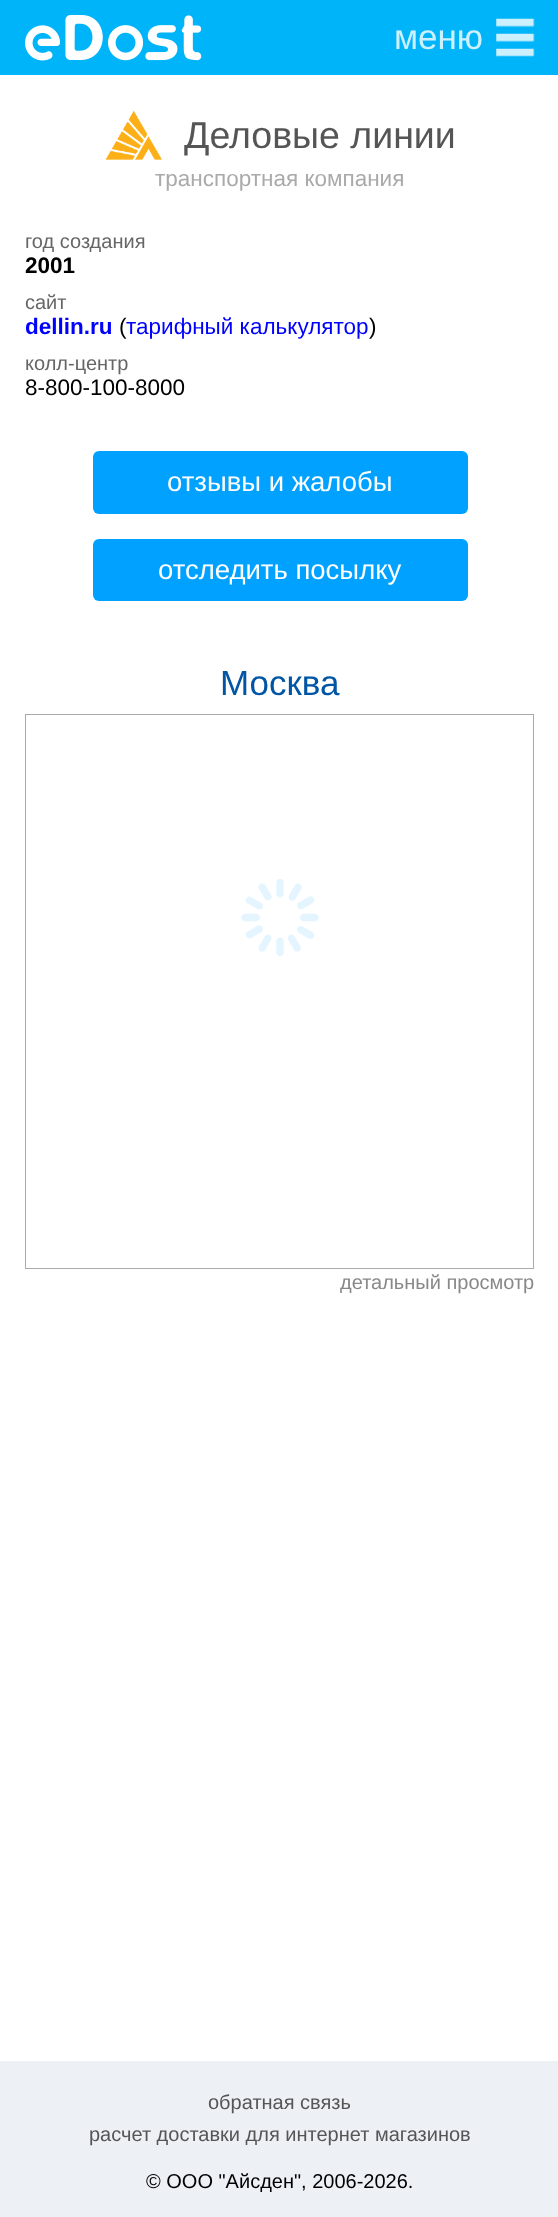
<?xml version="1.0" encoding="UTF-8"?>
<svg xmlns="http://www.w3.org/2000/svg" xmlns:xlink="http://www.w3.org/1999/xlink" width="558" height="2217">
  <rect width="100%" height="100%" fill="#ffffff" />
  <rect width="558" height="75" fill="#00b4f9" />
  <image x="25" y="15" width="177" height="46" xlink:href="image1.png" />
  <image x="496" y="18" width="39" height="39" xlink:href="image2.png" />
  <image x="105" y="110" width="57" height="50" xlink:href="image3.png" />
  <rect x="93" y="451" width="375" height="63" rx="6" fill="#00a1ff" />
  <rect x="93" y="539" width="375" height="62" rx="6" fill="#00a1ff" />
  <rect x="25.5" y="714.5" width="508" height="554" fill="none" stroke="#aaaaaa" />
  <image x="241" y="879" width="78" height="77" xlink:href="image4.png" />
  <rect y="2061" width="558" height="156" fill="#edf1f6" />
  <text x="394" y="49" style="font-family: Liberation Sans; font-size: 35px; fill: #ccf0fe">меню</text>
  <text x="184" y="148" style="font-family: Liberation Sans; font-size: 37.5px; fill: #555555">Деловые линии</text>
  <text x="155" y="186" style="font-family: Liberation Sans; font-size: 22.5px; fill: #aaaaaa">транспортная компания</text>
  <text x="25" y="248" style="font-family: Liberation Sans; font-size: 20px; fill: #666666">год создания</text>
  <text x="25" y="273" style="font-family: Liberation Sans; font-size: 22.5px; font-weight: bold; fill: #000000">2001</text>
  <text x="25" y="309" style="font-family: Liberation Sans; font-size: 20px; fill: #666666">сайт</text>
  <text x="25" y="334" style="font-family: Liberation Sans; font-size: 22.5px; font-weight: bold; fill: #0000ff">dellin.ru</text>
  <text x="119" y="334" style="font-family: Liberation Sans; font-size: 22.5px; fill: #000000">(</text>
  <text x="126" y="334" style="font-family: Liberation Sans; font-size: 22.5px; fill: #0000ff">тарифный калькулятор</text>
  <text x="369" y="334" style="font-family: Liberation Sans; font-size: 22.5px; fill: #000000">)</text>
  <text x="25" y="370" style="font-family: Liberation Sans; font-size: 20px; fill: #666666">колл-центр</text>
  <text x="25" y="395" style="font-family: Liberation Sans; font-size: 22.5px; fill: #000000">8-800-100-8000</text>
  <text x="167" y="491" style="font-family: Liberation Sans; font-size: 27.5px; fill: #ffffff">отзывы и жалобы</text>
  <text x="158" y="579" style="font-family: Liberation Sans; font-size: 27.5px; fill: #ffffff">отследить посылку</text>
  <text x="220" y="695" style="font-family: Liberation Sans; font-size: 35px; fill: #0055a5">Москва</text>
  <text x="340" y="1289" style="font-family: Liberation Sans; font-size: 20px; fill: #888888">детальный просмотр</text>
  <text x="208" y="2109" style="font-family: Liberation Sans; font-size: 20px; fill: #555555">обратная связь</text>
  <text x="89" y="2141" style="font-family: Liberation Sans; font-size: 20px; fill: #555555">расчет доставки для интернет магазинов</text>
  <text x="146" y="2188" style="font-family: Liberation Sans; font-size: 20px; fill: #000000">© ООО "Айсден", 2006-2026.</text>
</svg>
